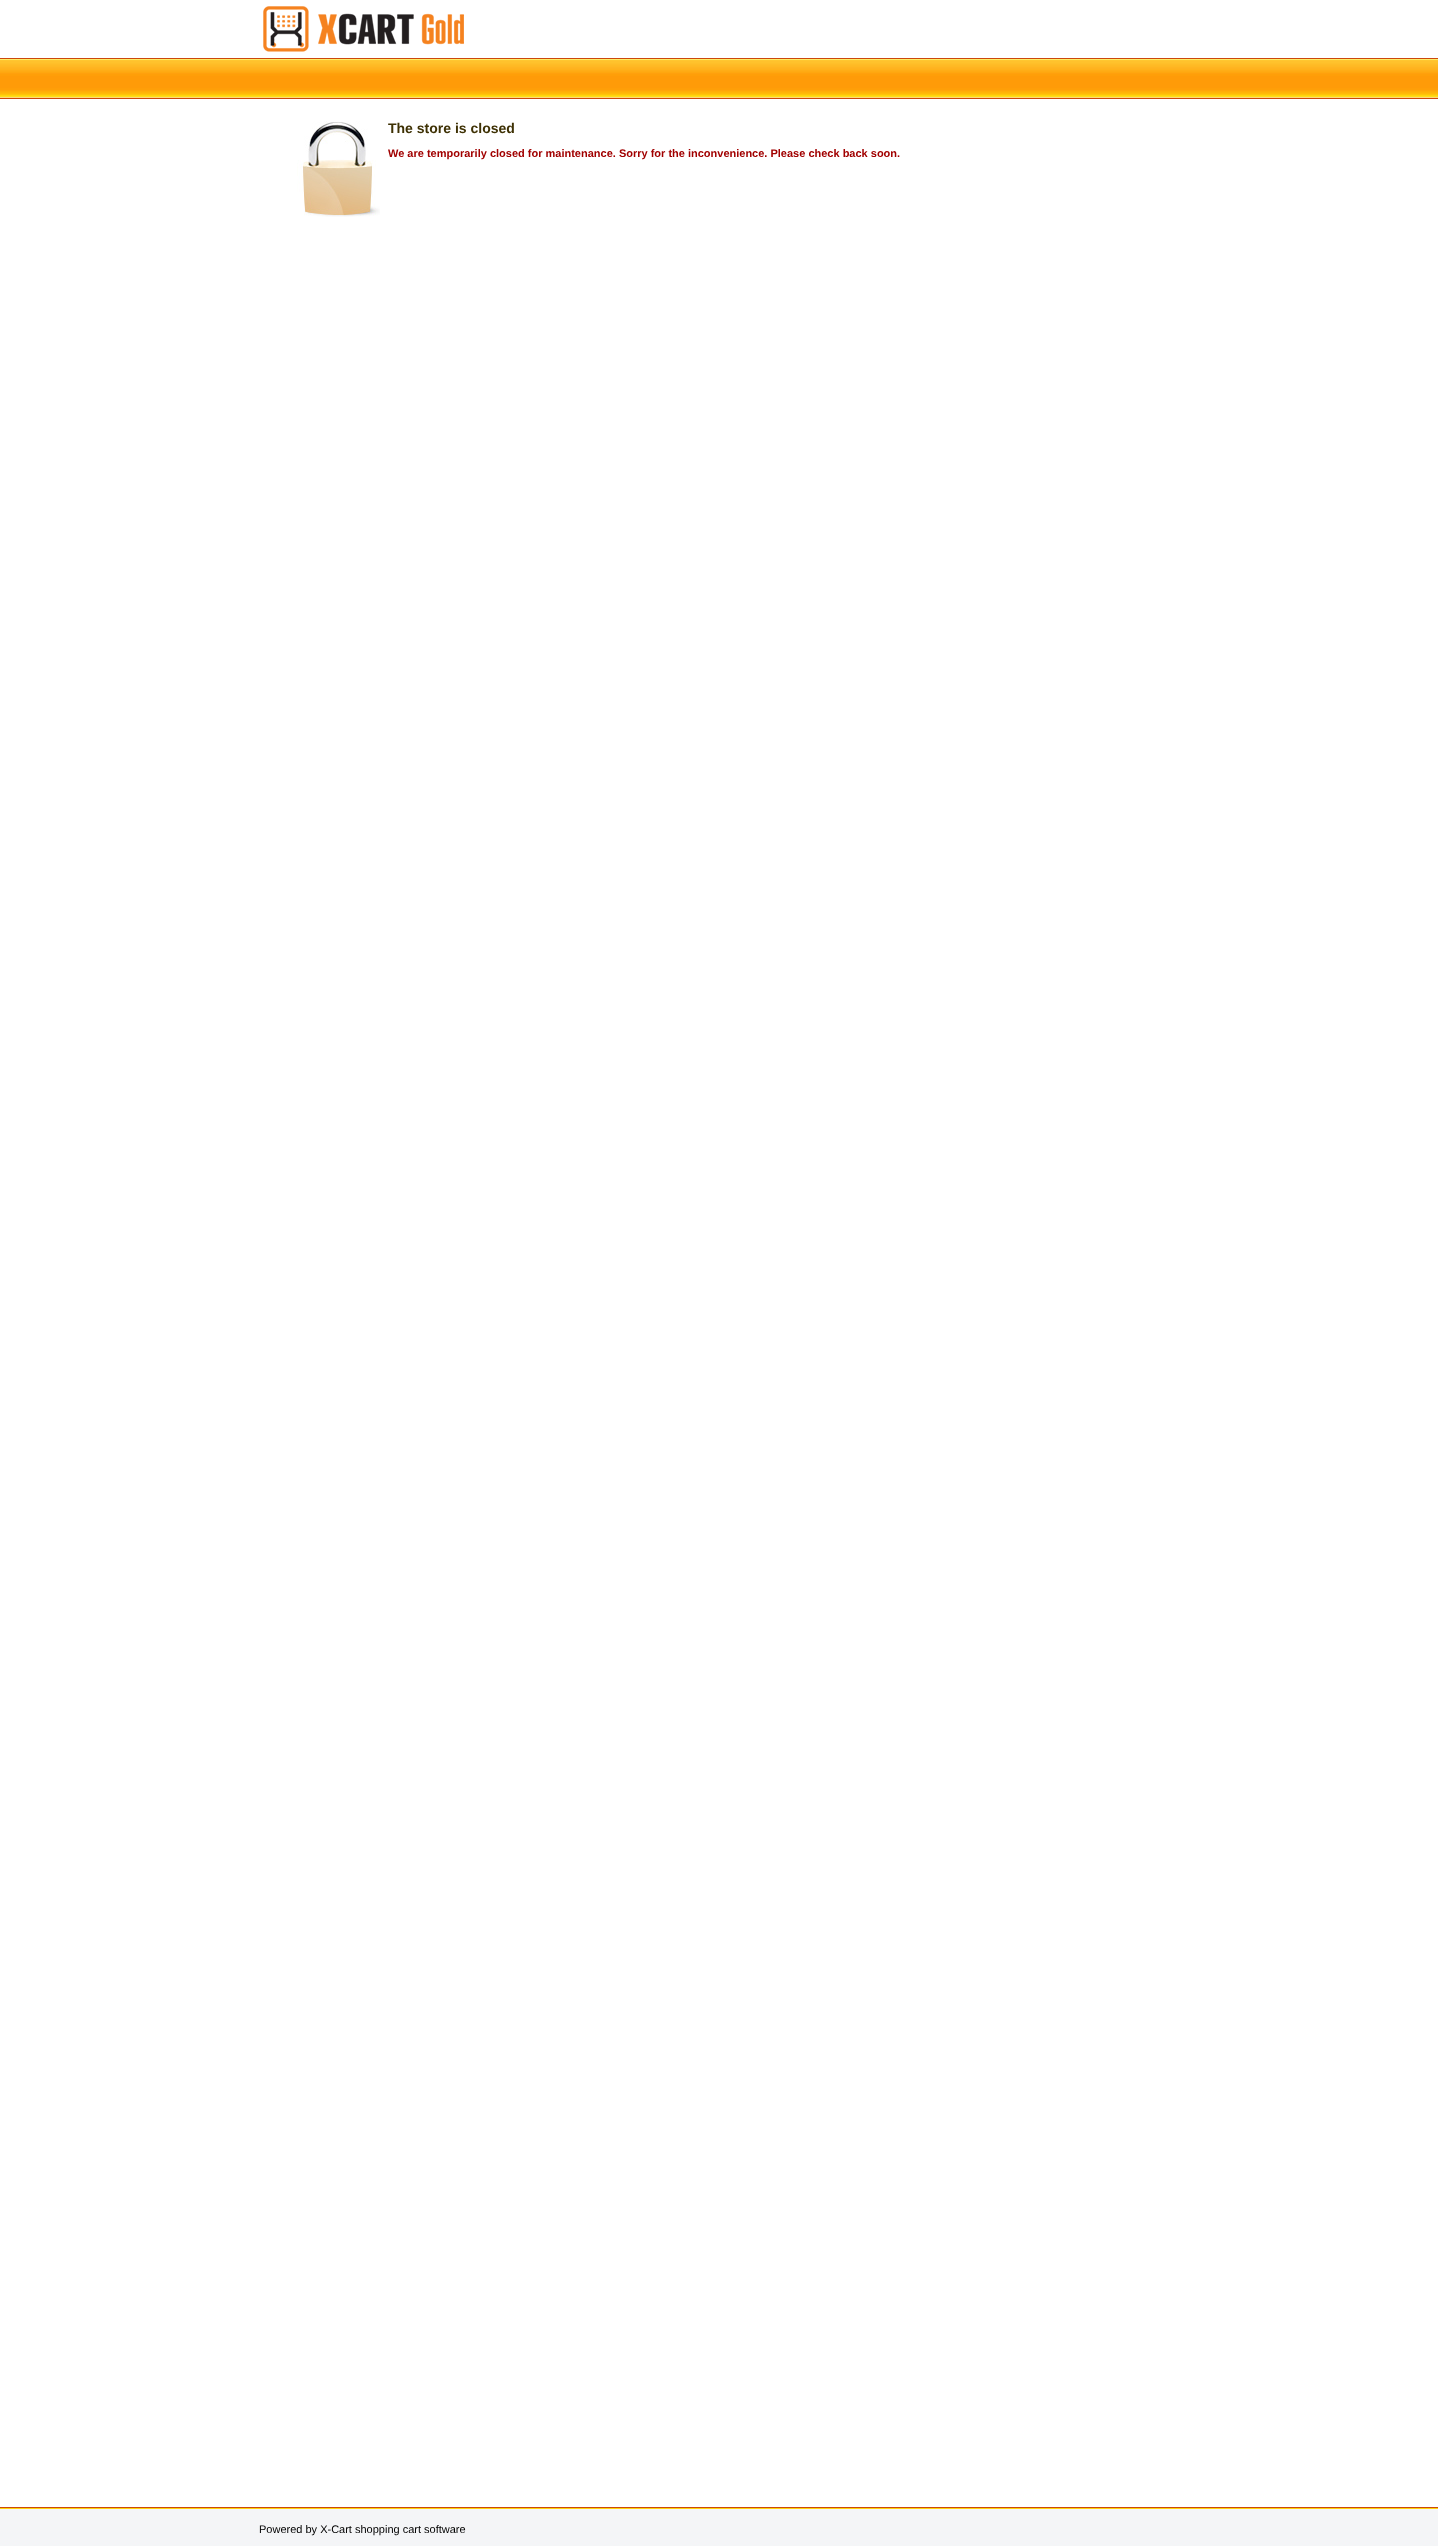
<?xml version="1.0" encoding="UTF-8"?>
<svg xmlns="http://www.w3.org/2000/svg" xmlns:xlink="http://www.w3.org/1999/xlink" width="1438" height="2546">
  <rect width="100%" height="100%" fill="#ffffff" />
  <image x="263" y="6" width="201" height="46" xlink:href="image1.png" />
  <image x="0" y="59" width="1438" height="39" xlink:href="image2.png" />
  <rect y="58" width="1438" height="1" fill="#cb480c" />
  <rect y="98" width="1438" height="1" fill="#cb480c" />
  <image x="297" y="121" width="83" height="96" xlink:href="image3.png" />
  <rect y="2507" width="1438" height="1" fill="#cb480c" />
  <rect y="2509" width="1438" height="37" fill="#f4f5f7" />
  <rect y="2508" width="1438" height="1" fill="#ffd30d" />
  <text x="388" y="133" style="font-family: Liberation Sans; font-size: 14px; font-weight: bold; fill: #3e3104">The store is closed</text>
  <text x="388" y="157" style="font-family: Liberation Sans; font-size: 11px; font-weight: bold; fill: #a10000">We are temporarily closed for maintenance. Sorry for the inconvenience. Please check back soon.</text>
  <text x="259" y="2533" style="font-family: Liberation Sans; font-size: 11px; fill: #000000">Powered by X-Cart shopping cart software</text>
</svg>
